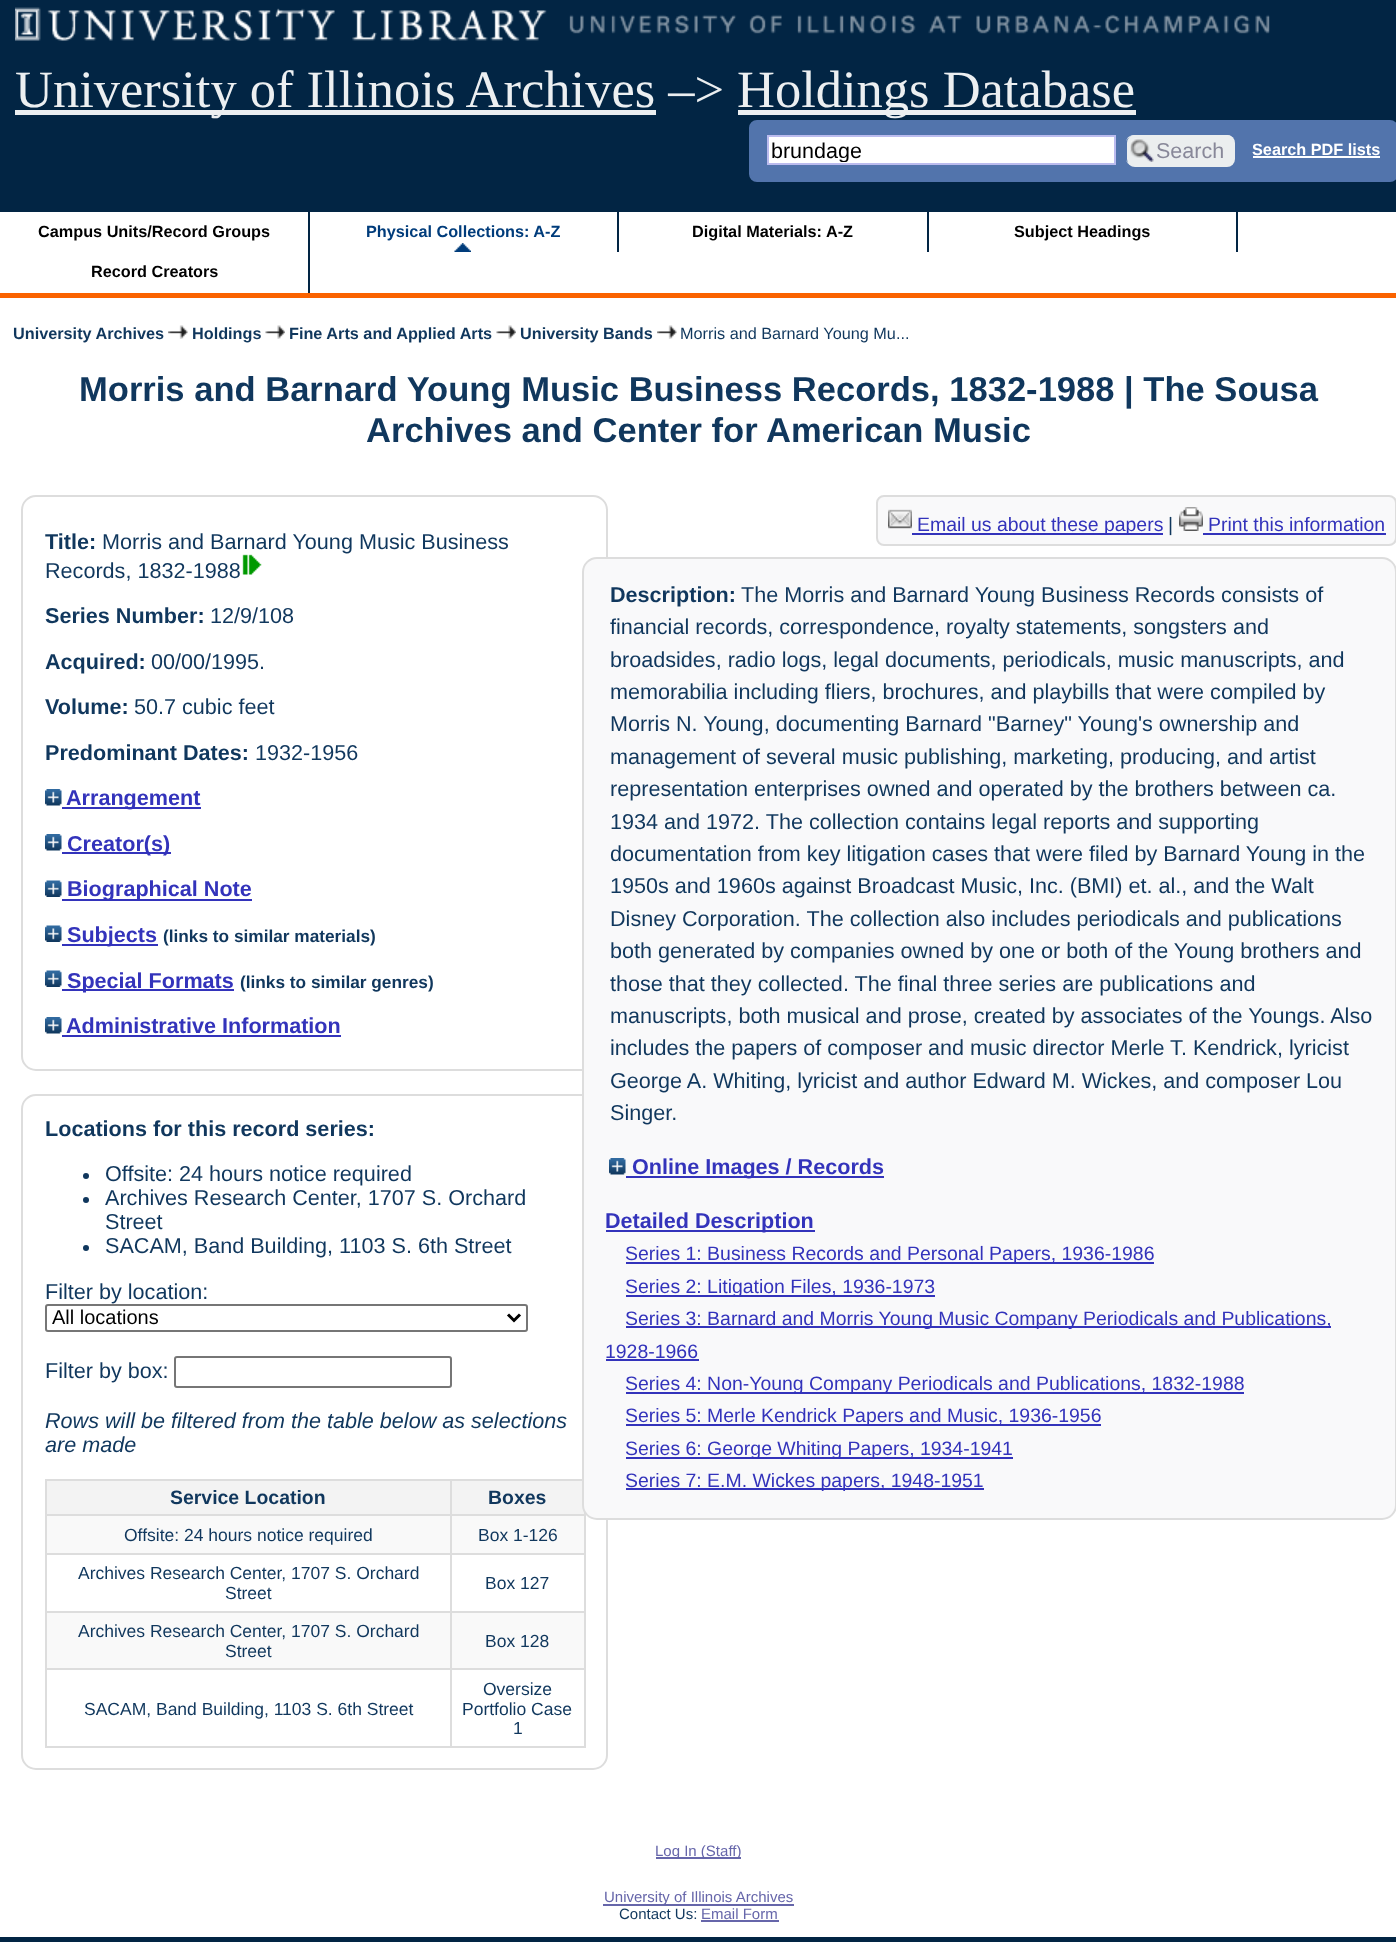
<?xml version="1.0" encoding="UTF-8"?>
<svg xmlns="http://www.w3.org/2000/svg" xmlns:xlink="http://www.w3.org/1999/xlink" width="1396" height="1942">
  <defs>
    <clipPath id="clip1"><rect x="771" y="138" width="341" height="24" /></clipPath>
  </defs>
  <rect width="100%" height="100%" fill="#ffffff" />
  <rect width="1396" height="212" fill="#022544" />
  <image x="15" y="7" width="1255" height="34" xlink:href="image1.png" />
  <rect y="293" width="1396" height="5" fill="#fa6300" />
  <rect x="15" y="110" width="641" height="5" fill="#eceff1" />
  <rect x="738" y="110" width="398" height="5" fill="#eceff1" />
  <rect x="750" y="121" width="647" height="60" rx="7" fill="#5274ac" stroke="#5274ac" stroke-width="2" />
  <rect x="768" y="136" width="347" height="28" fill="#ffffff" stroke="#bbbbee" stroke-width="2" />
  <rect x="1127" y="135" width="108" height="32" rx="8" fill="#ebeeef" />
  <image x="1130" y="138" width="24" height="24" xlink:href="image2.png" />
  <path d="M 1134 135 h 93 c 4 0 7 3 7 7 v 17 c 0 4 -3 7 -7 7 h -93 c -4 0 -8 -3 -8 -7 v -17 c 0 -4 4 -7 8 -7 z m 0 1 h 93 c 3 0 6 3 6 6 v 17 c 0 3 -3 6 -6 6 h -93 c -4 0 -8 -3 -8 -6 v -17 c 0 -3 4 -6 8 -6 z" fill="#ebeeef" fill-rule="evenodd" />
  <rect x="1253" y="156" width="127" height="2" fill="#ffffff" />
  <rect x="308" y="212" width="2" height="81" fill="#022544" />
  <image x="454" y="243" width="17" height="9" xlink:href="image3.png" />
  <rect x="617" y="212" width="2" height="40" fill="#022544" />
  <rect x="927" y="212" width="2" height="40" fill="#022544" />
  <rect x="1236" y="212" width="2" height="40" fill="#022544" />
  <image x="168" y="325" width="20" height="14" xlink:href="image4.png" />
  <image x="265" y="325" width="20" height="14" xlink:href="image5.png" />
  <image x="496" y="325" width="20" height="14" xlink:href="image5.png" />
  <image x="657" y="325" width="20" height="14" xlink:href="image4.png" />
  <rect x="22" y="496" width="585" height="574" rx="14" fill="none" stroke="#dddddd" stroke-width="2" />
  <image x="242" y="554" width="20" height="21" xlink:href="image6.png" />
  <image x="45" y="789" width="17" height="17" xlink:href="image7.png" />
  <rect x="62" y="807" width="139" height="2" fill="#3333bb" />
  <image x="45" y="834" width="17" height="17" xlink:href="image7.png" />
  <rect x="62" y="852" width="109" height="2" fill="#3333bb" />
  <image x="45" y="880" width="17" height="17" xlink:href="image8.png" />
  <rect x="62" y="899" width="190" height="2" fill="#3333bb" />
  <image x="45" y="925" width="17" height="17" xlink:href="image8.png" />
  <rect x="62" y="944" width="96" height="2" fill="#3333bb" />
  <image x="45" y="970" width="17" height="17" xlink:href="image8.png" />
  <rect x="62" y="989" width="172" height="2" fill="#3333bb" />
  <image x="45" y="1017" width="17" height="17" xlink:href="image7.png" />
  <rect x="62" y="1035" width="279" height="2" fill="#3333bb" />
  <rect x="22" y="1095" width="585" height="674" rx="14" fill="none" stroke="#dddddd" stroke-width="2" />
  <circle cx="86" cy="1176" r="3" fill="#10375d" />
  <circle cx="86" cy="1200" r="3" fill="#10375d" />
  <circle cx="86" cy="1248" r="3" fill="#10375d" />
  <rect x="46" y="1305" width="481" height="26" rx="2" fill="none" stroke="#767676" stroke-width="2" />
  <path d="M 508 1314.5 l 6 6 l 6 -6" fill="none" stroke="#000000" stroke-width="3" />
  <rect x="175" y="1357" width="276" height="30" rx="2" fill="none" stroke="#767676" stroke-width="2" />
  <rect x="45" y="1479" width="540" height="2" fill="#dddddd" />
  <rect x="584" y="1512" width="2" height="236" fill="#dddddd" />
  <rect x="45" y="1746" width="540" height="2" fill="#dddddd" />
  <rect x="45" y="1479" width="2" height="269" fill="#dddddd" />
  <rect x="47" y="1481" width="403" height="33" fill="#f3f3f3" />
  <rect x="452" y="1481" width="132" height="33" fill="#f3f3f3" />
  <rect x="450" y="1514" width="135" height="2" fill="#dddddd" />
  <rect x="47" y="1516" width="537" height="37" fill="#f9f9f9" />
  <rect x="450" y="1553" width="135" height="2" fill="#dddddd" />
  <rect x="450" y="1611" width="135" height="2" fill="#dddddd" />
  <rect x="47" y="1613" width="537" height="55" fill="#f9f9f9" />
  <rect x="450" y="1668" width="135" height="2" fill="#dddddd" />
  <rect x="450" y="1668" width="2" height="80" fill="#dddddd" />
  <rect x="45" y="1668" width="407" height="2" fill="#dddddd" />
  <rect x="450" y="1611" width="2" height="59" fill="#dddddd" />
  <rect x="45" y="1611" width="407" height="2" fill="#dddddd" />
  <rect x="450" y="1553" width="2" height="60" fill="#dddddd" />
  <rect x="45" y="1553" width="407" height="2" fill="#dddddd" />
  <rect x="450" y="1514" width="2" height="40" fill="#dddddd" />
  <rect x="45" y="1514" width="407" height="2" fill="#dddddd" />
  <rect x="450" y="1479" width="2" height="36" fill="#dddddd" />
  <rect x="877" y="496" width="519" height="49" rx="7" fill="#f9f9fa" stroke="#dddddd" stroke-width="2" />
  <image x="888" y="509" width="24" height="20" xlink:href="image9.png" />
  <rect x="912" y="533" width="251" height="2" fill="#3333bb" />
  <image x="1179" y="507" width="24" height="24" xlink:href="image10.png" />
  <rect x="1203" y="533" width="183" height="2" fill="#3333bb" />
  <rect x="583" y="558" width="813" height="961" rx="14" fill="#f9f9fa" stroke="#dddddd" stroke-width="2" />
  <image x="609" y="1158" width="17" height="17" xlink:href="image11.png" />
  <rect x="626" y="1176" width="258" height="2" fill="#3333bb" />
  <rect x="606" y="1230" width="209" height="2" fill="#3333bb" />
  <rect x="626" y="1262" width="528" height="2" fill="#3333bb" />
  <rect x="626" y="1295" width="309" height="2" fill="#3333bb" />
  <rect x="626" y="1326" width="705" height="2" fill="#3333bb" />
  <rect x="606" y="1359" width="93" height="2" fill="#3333bb" />
  <rect x="626" y="1392" width="618" height="2" fill="#3333bb" />
  <rect x="626" y="1424" width="475" height="2" fill="#3333bb" />
  <rect x="626" y="1457" width="387" height="2" fill="#3333bb" />
  <rect x="626" y="1488" width="358" height="2" fill="#3333bb" />
  <rect x="656" y="1857" width="85" height="2" fill="#6666aa" />
  <rect x="603" y="1904" width="191" height="2" fill="#6666aa" />
  <rect x="701" y="1920" width="78" height="2" fill="#6666aa" />
  <rect y="1937" width="1396" height="5" fill="#022544" />
  <text x="15" y="107" style="font-family: Liberation Serif; font-size: 52.5px; fill: #eceff1">University of Illinois Archives –&gt;</text>
  <text x="737" y="107" style="font-family: Liberation Serif; font-size: 52.5px; fill: #eceff1">Holdings Database</text>
  <g clip-path="url(#clip1)">
    <text x="771" y="158" style="font-family: Liberation Sans; font-size: 21.5px; fill: #000000">brundage</text>
  </g>
  <text x="1156" y="158" style="font-family: Liberation Sans; font-size: 21.5px; fill: #888899">Search</text>
  <text x="1252" y="155" style="font-family: Liberation Sans; font-size: 16.25px; font-weight: bold; fill: #ffffff">Search PDF lists</text>
  <text x="38" y="237" style="font-family: Liberation Sans; font-size: 16.25px; font-weight: bold; fill: #000000">Campus Units/Record Groups</text>
  <text x="366" y="237" style="font-family: Liberation Sans; font-size: 16.25px; font-weight: bold; fill: #003c7b">Physical Collections: A-Z</text>
  <text x="692" y="237" style="font-family: Liberation Sans; font-size: 16.25px; font-weight: bold; fill: #000000">Digital Materials: A-Z</text>
  <text x="1014" y="237" style="font-family: Liberation Sans; font-size: 16.25px; font-weight: bold; fill: #000000">Subject Headings</text>
  <text x="91" y="277" style="font-family: Liberation Sans; font-size: 16.25px; font-weight: bold; fill: #000000">Record Creators</text>
  <text x="13" y="339" style="font-family: Liberation Sans; font-size: 16.25px; font-weight: bold; fill: #10375d">University Archives</text>
  <text x="192" y="339" style="font-family: Liberation Sans; font-size: 16.25px; font-weight: bold; fill: #10375d">Holdings</text>
  <text x="289" y="339" style="font-family: Liberation Sans; font-size: 16.25px; font-weight: bold; fill: #10375d">Fine Arts and Applied Arts</text>
  <text x="520" y="339" style="font-family: Liberation Sans; font-size: 16.25px; font-weight: bold; fill: #10375d">University Bands</text>
  <text x="680" y="339" style="font-family: Liberation Sans; font-size: 16.25px; fill: #10375d">Morris and Barnard Young Mu...</text>
  <text x="79" y="401" style="font-family: Liberation Sans; font-size: 34.55px; font-weight: bold; fill: #10375d">Morris and Barnard Young Music Business Records, 1832-1988 | The Sousa</text>
  <text x="366" y="442" style="font-family: Liberation Sans; font-size: 34.55px; font-weight: bold; fill: #10375d">Archives and Center for American Music</text>
  <text x="45" y="549" style="font-family: Liberation Sans; font-size: 21.6px; font-weight: bold; fill: #10375d">Title:</text>
  <text x="102" y="549" style="font-family: Liberation Sans; font-size: 21.6px; fill: #10375d">Morris and Barnard Young Music Business</text>
  <text x="45" y="578" style="font-family: Liberation Sans; font-size: 21.6px; fill: #10375d">Records, 1832-1988</text>
  <text x="45" y="623" style="font-family: Liberation Sans; font-size: 21.6px; font-weight: bold; fill: #10375d">Series Number:</text>
  <text x="210" y="623" style="font-family: Liberation Sans; font-size: 21.6px; fill: #10375d">12/9/108</text>
  <text x="45" y="669" style="font-family: Liberation Sans; font-size: 21.6px; font-weight: bold; fill: #10375d">Acquired:</text>
  <text x="151" y="669" style="font-family: Liberation Sans; font-size: 21.6px; fill: #10375d">00/00/1995.</text>
  <text x="45" y="714" style="font-family: Liberation Sans; font-size: 21.6px; font-weight: bold; fill: #10375d">Volume:</text>
  <text x="134" y="714" style="font-family: Liberation Sans; font-size: 21.6px; fill: #10375d">50.7 cubic feet</text>
  <text x="45" y="760" style="font-family: Liberation Sans; font-size: 21.6px; font-weight: bold; fill: #10375d">Predominant Dates:</text>
  <text x="255" y="760" style="font-family: Liberation Sans; font-size: 21.6px; fill: #10375d">1932-1956</text>
  <text x="66" y="805" style="font-family: Liberation Sans; font-size: 21.6px; font-weight: bold; fill: #3333bb">Arrangement</text>
  <text x="67" y="851" style="font-family: Liberation Sans; font-size: 21.6px; font-weight: bold; fill: #3333bb">Creator(s)</text>
  <text x="67" y="896" style="font-family: Liberation Sans; font-size: 21.6px; font-weight: bold; fill: #3333bb">Biographical Note</text>
  <text x="67" y="942" style="font-family: Liberation Sans; font-size: 21.6px; font-weight: bold; fill: #3333bb">Subjects</text>
  <text x="163" y="942" style="font-family: Liberation Sans; font-size: 17.25px; font-weight: bold; fill: #10375d">(links to similar materials)</text>
  <text x="67" y="988" style="font-family: Liberation Sans; font-size: 21.6px; font-weight: bold; fill: #3333bb">Special Formats</text>
  <text x="240" y="988" style="font-family: Liberation Sans; font-size: 17.25px; font-weight: bold; fill: #10375d">(links to similar genres)</text>
  <text x="66" y="1033" style="font-family: Liberation Sans; font-size: 21.6px; font-weight: bold; fill: #3333bb">Administrative Information</text>
  <text x="45" y="1136" style="font-family: Liberation Sans; font-size: 21.6px; font-weight: bold; fill: #10375d">Locations for this record series:</text>
  <text x="105" y="1181" style="font-family: Liberation Sans; font-size: 21.6px; fill: #10375d">Offsite: 24 hours notice required</text>
  <text x="105" y="1205" style="font-family: Liberation Sans; font-size: 21.6px; fill: #10375d">Archives Research Center, 1707 S. Orchard</text>
  <text x="105" y="1229" style="font-family: Liberation Sans; font-size: 21.6px; fill: #10375d">Street</text>
  <text x="105" y="1253" style="font-family: Liberation Sans; font-size: 21.6px; fill: #10375d">SACAM, Band Building, 1103 S. 6th Street</text>
  <text x="45" y="1299" style="font-family: Liberation Sans; font-size: 21.6px; fill: #10375d">Filter by location:</text>
  <text x="52" y="1324" style="font-family: Liberation Sans; font-size: 20px; fill: #000000">All locations</text>
  <text x="45" y="1378" style="font-family: Liberation Sans; font-size: 21.6px; fill: #10375d">Filter by box:</text>
  <text x="45" y="1428" style="font-family: Liberation Sans; font-size: 21.6px; font-style: italic; fill: #10375d">Rows will be filtered from the table below as selections</text>
  <text x="45" y="1452" style="font-family: Liberation Sans; font-size: 21.6px; font-style: italic; fill: #10375d">are made</text>
  <text x="170" y="1504" style="font-family: Liberation Sans; font-size: 19.45px; font-weight: bold; fill: #10375d">Service Location</text>
  <text x="488" y="1504" style="font-family: Liberation Sans; font-size: 19.45px; font-weight: bold; fill: #10375d">Boxes</text>
  <text x="124" y="1541" style="font-family: Liberation Sans; font-size: 17.5px; fill: #10375d">Offsite: 24 hours notice required</text>
  <text x="478" y="1541" style="font-family: Liberation Sans; font-size: 17.5px; fill: #10375d">Box 1-126</text>
  <text x="78" y="1579" style="font-family: Liberation Sans; font-size: 17.5px; fill: #10375d">Archives Research Center, 1707 S. Orchard</text>
  <text x="225" y="1599" style="font-family: Liberation Sans; font-size: 17.5px; fill: #10375d">Street</text>
  <text x="485" y="1589" style="font-family: Liberation Sans; font-size: 17.5px; fill: #10375d">Box 127</text>
  <text x="78" y="1637" style="font-family: Liberation Sans; font-size: 17.5px; fill: #10375d">Archives Research Center, 1707 S. Orchard</text>
  <text x="225" y="1657" style="font-family: Liberation Sans; font-size: 17.5px; fill: #10375d">Street</text>
  <text x="485" y="1647" style="font-family: Liberation Sans; font-size: 17.5px; fill: #10375d">Box 128</text>
  <text x="84" y="1715" style="font-family: Liberation Sans; font-size: 17.5px; fill: #10375d">SACAM, Band Building, 1103 S. 6th Street</text>
  <text x="483" y="1695" style="font-family: Liberation Sans; font-size: 17.5px; fill: #10375d">Oversize</text>
  <text x="462" y="1715" style="font-family: Liberation Sans; font-size: 17.5px; fill: #10375d">Portfolio Case</text>
  <text x="513" y="1734" style="font-family: Liberation Sans; font-size: 17.5px; fill: #10375d">1</text>
  <text x="917" y="531" style="font-family: Liberation Sans; font-size: 19.45px; fill: #3333bb">Email us about these papers</text>
  <text x="1168" y="531" style="font-family: Liberation Sans; font-size: 19.45px; fill: #10375d">|</text>
  <text x="1208" y="531" style="font-family: Liberation Sans; font-size: 19.45px; fill: #3333bb">Print this information</text>
  <text x="610" y="602" style="font-family: Liberation Sans; font-size: 21.6px; font-weight: bold; fill: #10375d">Description:</text>
  <text x="741" y="602" style="font-family: Liberation Sans; font-size: 21.6px; fill: #10375d">The Morris and Barnard Young Business Records consists of</text>
  <text x="610" y="634" style="font-family: Liberation Sans; font-size: 21.6px; fill: #10375d">financial records, correspondence, royalty statements, songsters and</text>
  <text x="610" y="667" style="font-family: Liberation Sans; font-size: 21.6px; fill: #10375d">broadsides, radio logs, legal documents, periodicals, music manuscripts, and</text>
  <text x="610" y="699" style="font-family: Liberation Sans; font-size: 21.6px; fill: #10375d">memorabilia including fliers, brochures, and playbills that were compiled by</text>
  <text x="610" y="731" style="font-family: Liberation Sans; font-size: 21.6px; fill: #10375d">Morris N. Young, documenting Barnard "Barney" Young's ownership and</text>
  <text x="610" y="764" style="font-family: Liberation Sans; font-size: 21.6px; fill: #10375d">management of several music publishing, marketing, producing, and artist</text>
  <text x="610" y="796" style="font-family: Liberation Sans; font-size: 21.6px; fill: #10375d">representation enterprises owned and operated by the brothers between ca.</text>
  <text x="610" y="829" style="font-family: Liberation Sans; font-size: 21.6px; fill: #10375d">1934 and 1972. The collection contains legal reports and supporting</text>
  <text x="610" y="861" style="font-family: Liberation Sans; font-size: 21.6px; fill: #10375d">documentation from key litigation cases that were filed by Barnard Young in the</text>
  <text x="610" y="893" style="font-family: Liberation Sans; font-size: 21.6px; fill: #10375d">1950s and 1960s against Broadcast Music, Inc. (BMI) et. al., and the Walt</text>
  <text x="610" y="926" style="font-family: Liberation Sans; font-size: 21.6px; fill: #10375d">Disney Corporation. The collection also includes periodicals and publications</text>
  <text x="610" y="958" style="font-family: Liberation Sans; font-size: 21.6px; fill: #10375d">both generated by companies owned by one or both of the Young brothers and</text>
  <text x="610" y="991" style="font-family: Liberation Sans; font-size: 21.6px; fill: #10375d">those that they collected. The final three series are publications and</text>
  <text x="610" y="1023" style="font-family: Liberation Sans; font-size: 21.6px; fill: #10375d">manuscripts, both musical and prose, created by associates of the Youngs. Also</text>
  <text x="610" y="1055" style="font-family: Liberation Sans; font-size: 21.6px; fill: #10375d">includes the papers of composer and music director Merle T. Kendrick, lyricist</text>
  <text x="610" y="1088" style="font-family: Liberation Sans; font-size: 21.6px; fill: #10375d">George A. Whiting, lyricist and author Edward M. Wickes, and composer Lou</text>
  <text x="610" y="1120" style="font-family: Liberation Sans; font-size: 21.6px; fill: #10375d">Singer.</text>
  <text x="632" y="1174" style="font-family: Liberation Sans; font-size: 21.6px; font-weight: bold; fill: #3333bb">Online Images / Records</text>
  <text x="605" y="1228" style="font-family: Liberation Sans; font-size: 21.6px; font-weight: bold; fill: #3333bb">Detailed Description</text>
  <text x="625" y="1260" style="font-family: Liberation Sans; font-size: 19.45px; fill: #3333bb">Series 1: Business Records and Personal Papers, 1936-1986</text>
  <text x="625" y="1293" style="font-family: Liberation Sans; font-size: 19.45px; fill: #3333bb">Series 2: Litigation Files, 1936-1973</text>
  <text x="625" y="1325" style="font-family: Liberation Sans; font-size: 19.45px; fill: #3333bb">Series 3: Barnard and Morris Young Music Company Periodicals and Publications,</text>
  <text x="605" y="1358" style="font-family: Liberation Sans; font-size: 19.45px; fill: #3333bb">1928-1966</text>
  <text x="625" y="1390" style="font-family: Liberation Sans; font-size: 19.45px; fill: #3333bb">Series 4: Non-Young Company Periodicals and Publications, 1832-1988</text>
  <text x="625" y="1422" style="font-family: Liberation Sans; font-size: 19.45px; fill: #3333bb">Series 5: Merle Kendrick Papers and Music, 1936-1956</text>
  <text x="625" y="1455" style="font-family: Liberation Sans; font-size: 19.45px; fill: #3333bb">Series 6: George Whiting Papers, 1934-1941</text>
  <text x="625" y="1487" style="font-family: Liberation Sans; font-size: 19.45px; fill: #3333bb">Series 7: E.M. Wickes papers, 1948-1951</text>
  <text x="655" y="1856" style="font-family: Liberation Sans; font-size: 15px; fill: #6666aa">Log In (Staff)</text>
  <text x="604" y="1902" style="font-family: Liberation Sans; font-size: 15px; fill: #6666aa">University of Illinois Archives</text>
  <text x="619" y="1919" style="font-family: Liberation Sans; font-size: 15px; fill: #10375d">Contact Us:</text>
  <text x="701" y="1919" style="font-family: Liberation Sans; font-size: 15px; fill: #6666aa">Email Form</text>
</svg>
